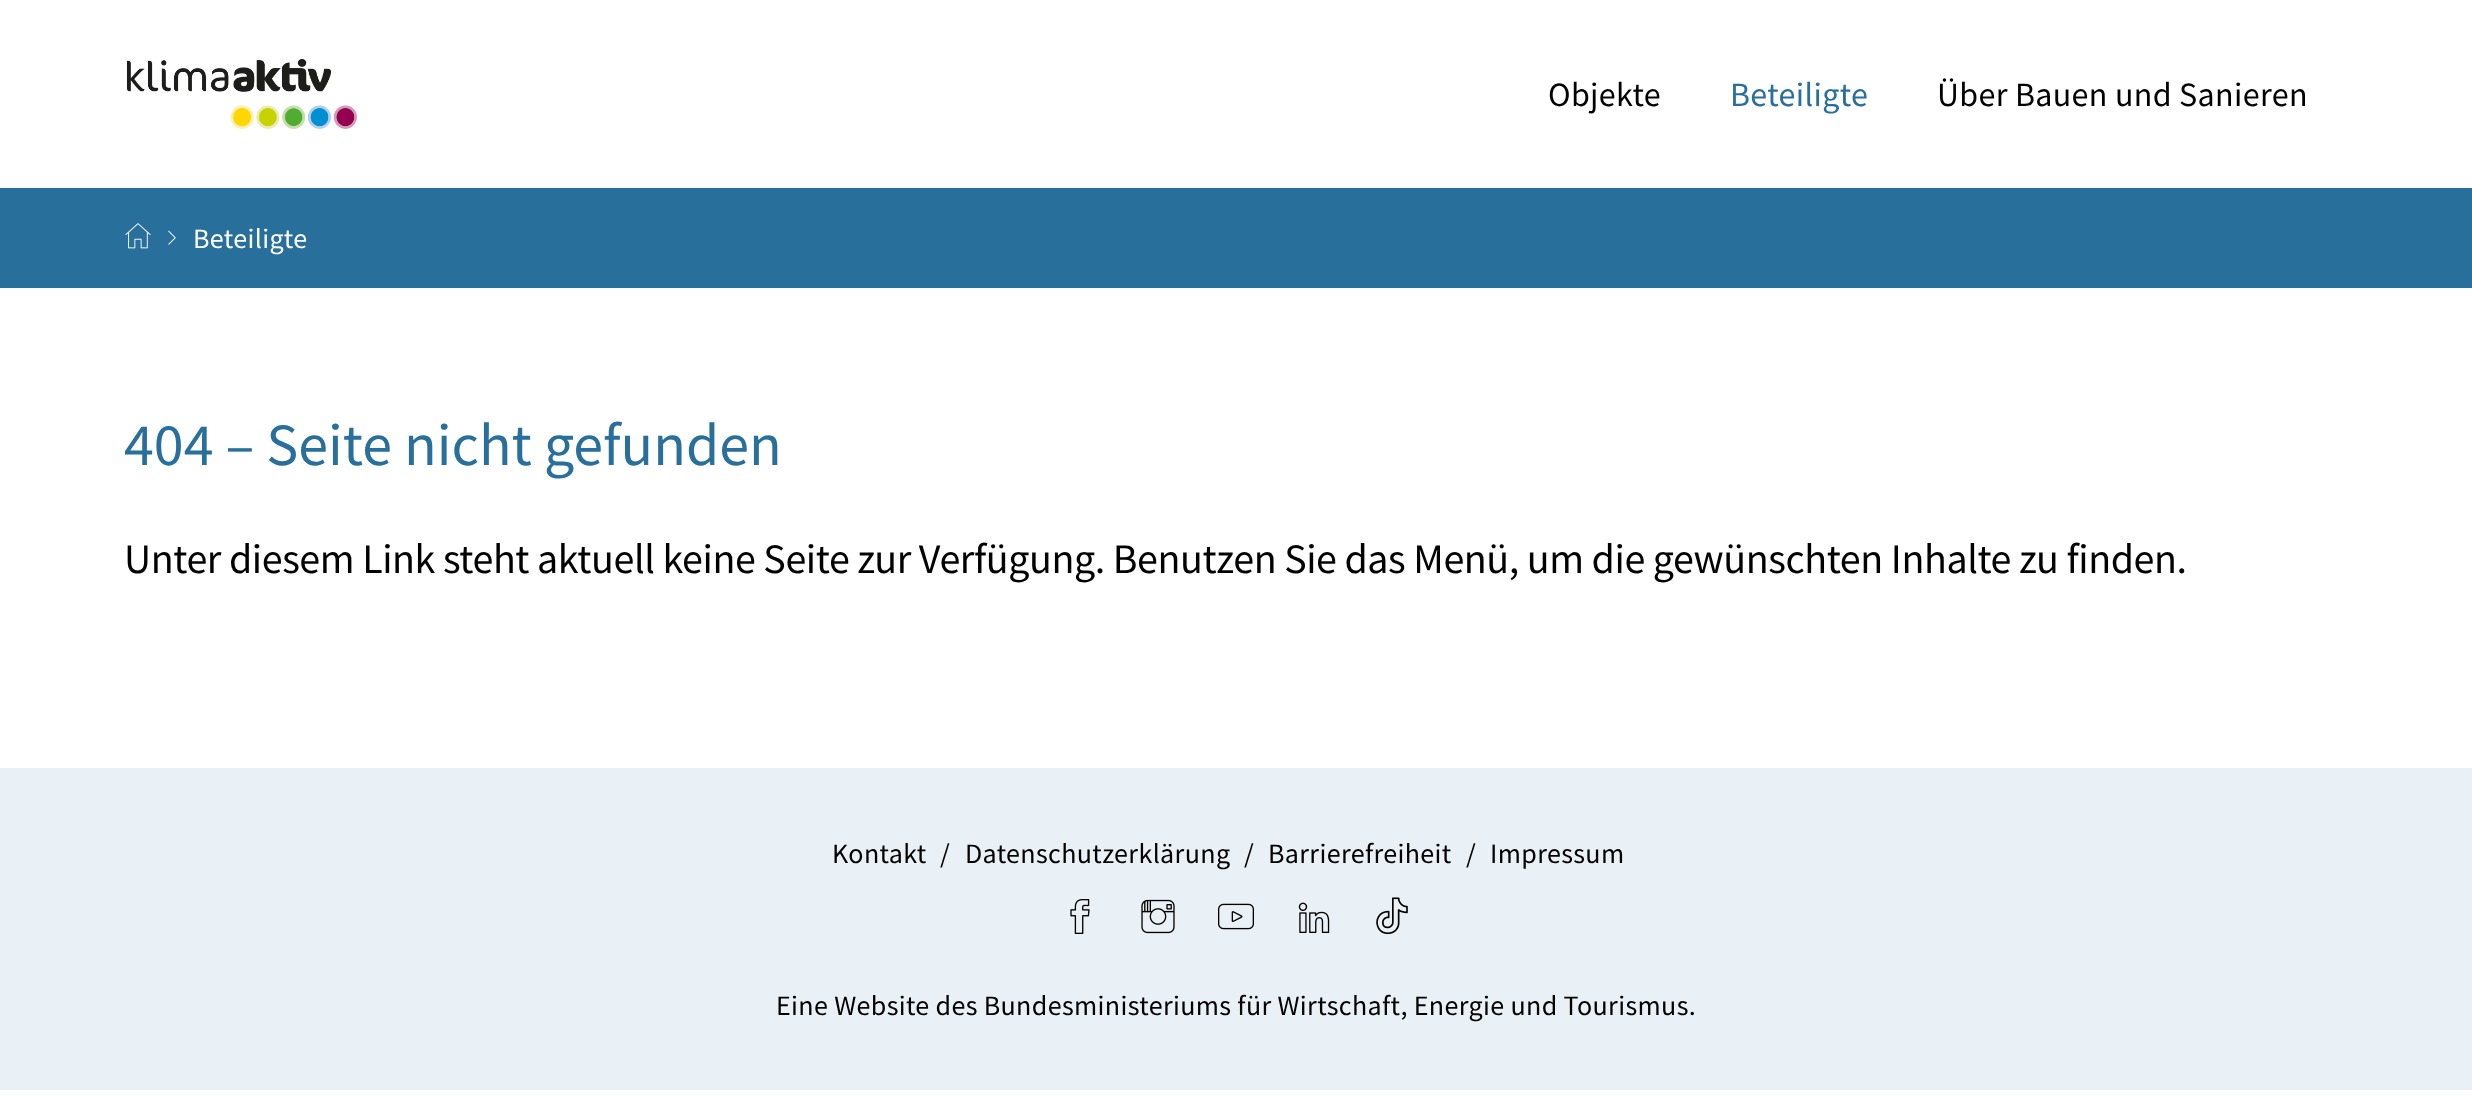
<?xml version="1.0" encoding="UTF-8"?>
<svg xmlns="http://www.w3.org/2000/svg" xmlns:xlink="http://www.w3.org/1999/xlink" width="2472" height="1114">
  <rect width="100%" height="100%" fill="#ffffff" />
  <image x="126" y="58" width="231" height="71" xlink:href="image1.png" />
  <rect y="188" width="2472" height="100" fill="#286f9c" />
  <image x="125" y="223" width="26" height="26" xlink:href="image2.png" />
  <image x="168" y="230" width="8" height="15" xlink:href="image3.png" />
  <rect y="768" width="2472" height="322" fill="#eaf1f6" />
  <image x="1070" y="899" width="20" height="35" xlink:href="image4.png" />
  <image x="1141" y="899" width="34" height="35" xlink:href="image5.png" />
  <image x="1218" y="903" width="36" height="27" xlink:href="image6.png" />
  <image x="1298" y="902" width="32" height="31" xlink:href="image7.png" />
  <image x="1376" y="897" width="32" height="38" xlink:href="image8.png" />
  <text x="1548" y="106" style="font-family: Source Sans Pro; font-size: 34px; letter-spacing: 0.35px; fill: #000000">Objekte</text>
  <text x="1730" y="106" style="font-family: Source Sans Pro; font-size: 34px; letter-spacing: 0.35px; fill: #286f9c">Beteiligte</text>
  <text x="1937" y="106" style="font-family: Source Sans Pro; font-size: 34px; letter-spacing: 0.35px; fill: #000000">Über Bauen und Sanieren</text>
  <text x="193" y="248" style="font-family: Source Sans Pro; font-size: 28px; letter-spacing: 0.35px; fill: #ffffff">Beteiligte</text>
  <text x="124" y="465" style="font-family: Source Sans Pro; font-size: 60px; fill: #286f9c">404 – Seite nicht gefunden</text>
  <text x="124" y="573" style="font-family: Source Sans Pro; font-size: 42px; letter-spacing: -0.42px; fill: #000000">Unter diesem Link steht aktuell keine Seite zur Verfügung. Benutzen Sie das Menü, um die gewünschten Inhalte zu finden.</text>
  <text x="832" y="863" style="font-family: Source Sans Pro; font-size: 28px; letter-spacing: 0.35px; fill: #000000">Kontakt</text>
  <text x="940" y="863" style="font-family: Source Sans Pro; font-size: 28px; letter-spacing: 0.35px; fill: #000000">/</text>
  <text x="965" y="863" style="font-family: Source Sans Pro; font-size: 28px; letter-spacing: 0.35px; fill: #000000">Datenschutzerklärung</text>
  <text x="1244" y="863" style="font-family: Source Sans Pro; font-size: 28px; letter-spacing: 0.35px; fill: #000000">/</text>
  <text x="1268" y="863" style="font-family: Source Sans Pro; font-size: 28px; letter-spacing: 0.35px; fill: #000000">Barrierefreiheit</text>
  <text x="1466" y="863" style="font-family: Source Sans Pro; font-size: 28px; letter-spacing: 0.35px; fill: #000000">/</text>
  <text x="1490" y="863" style="font-family: Source Sans Pro; font-size: 28px; letter-spacing: 0.35px; fill: #000000">Impressum</text>
  <text x="776" y="1015" style="font-family: Source Sans Pro; font-size: 28px; letter-spacing: 0.35px; fill: #000000">Eine Website des Bundesministeriums für Wirtschaft, Energie und Tourismus.</text>
</svg>
